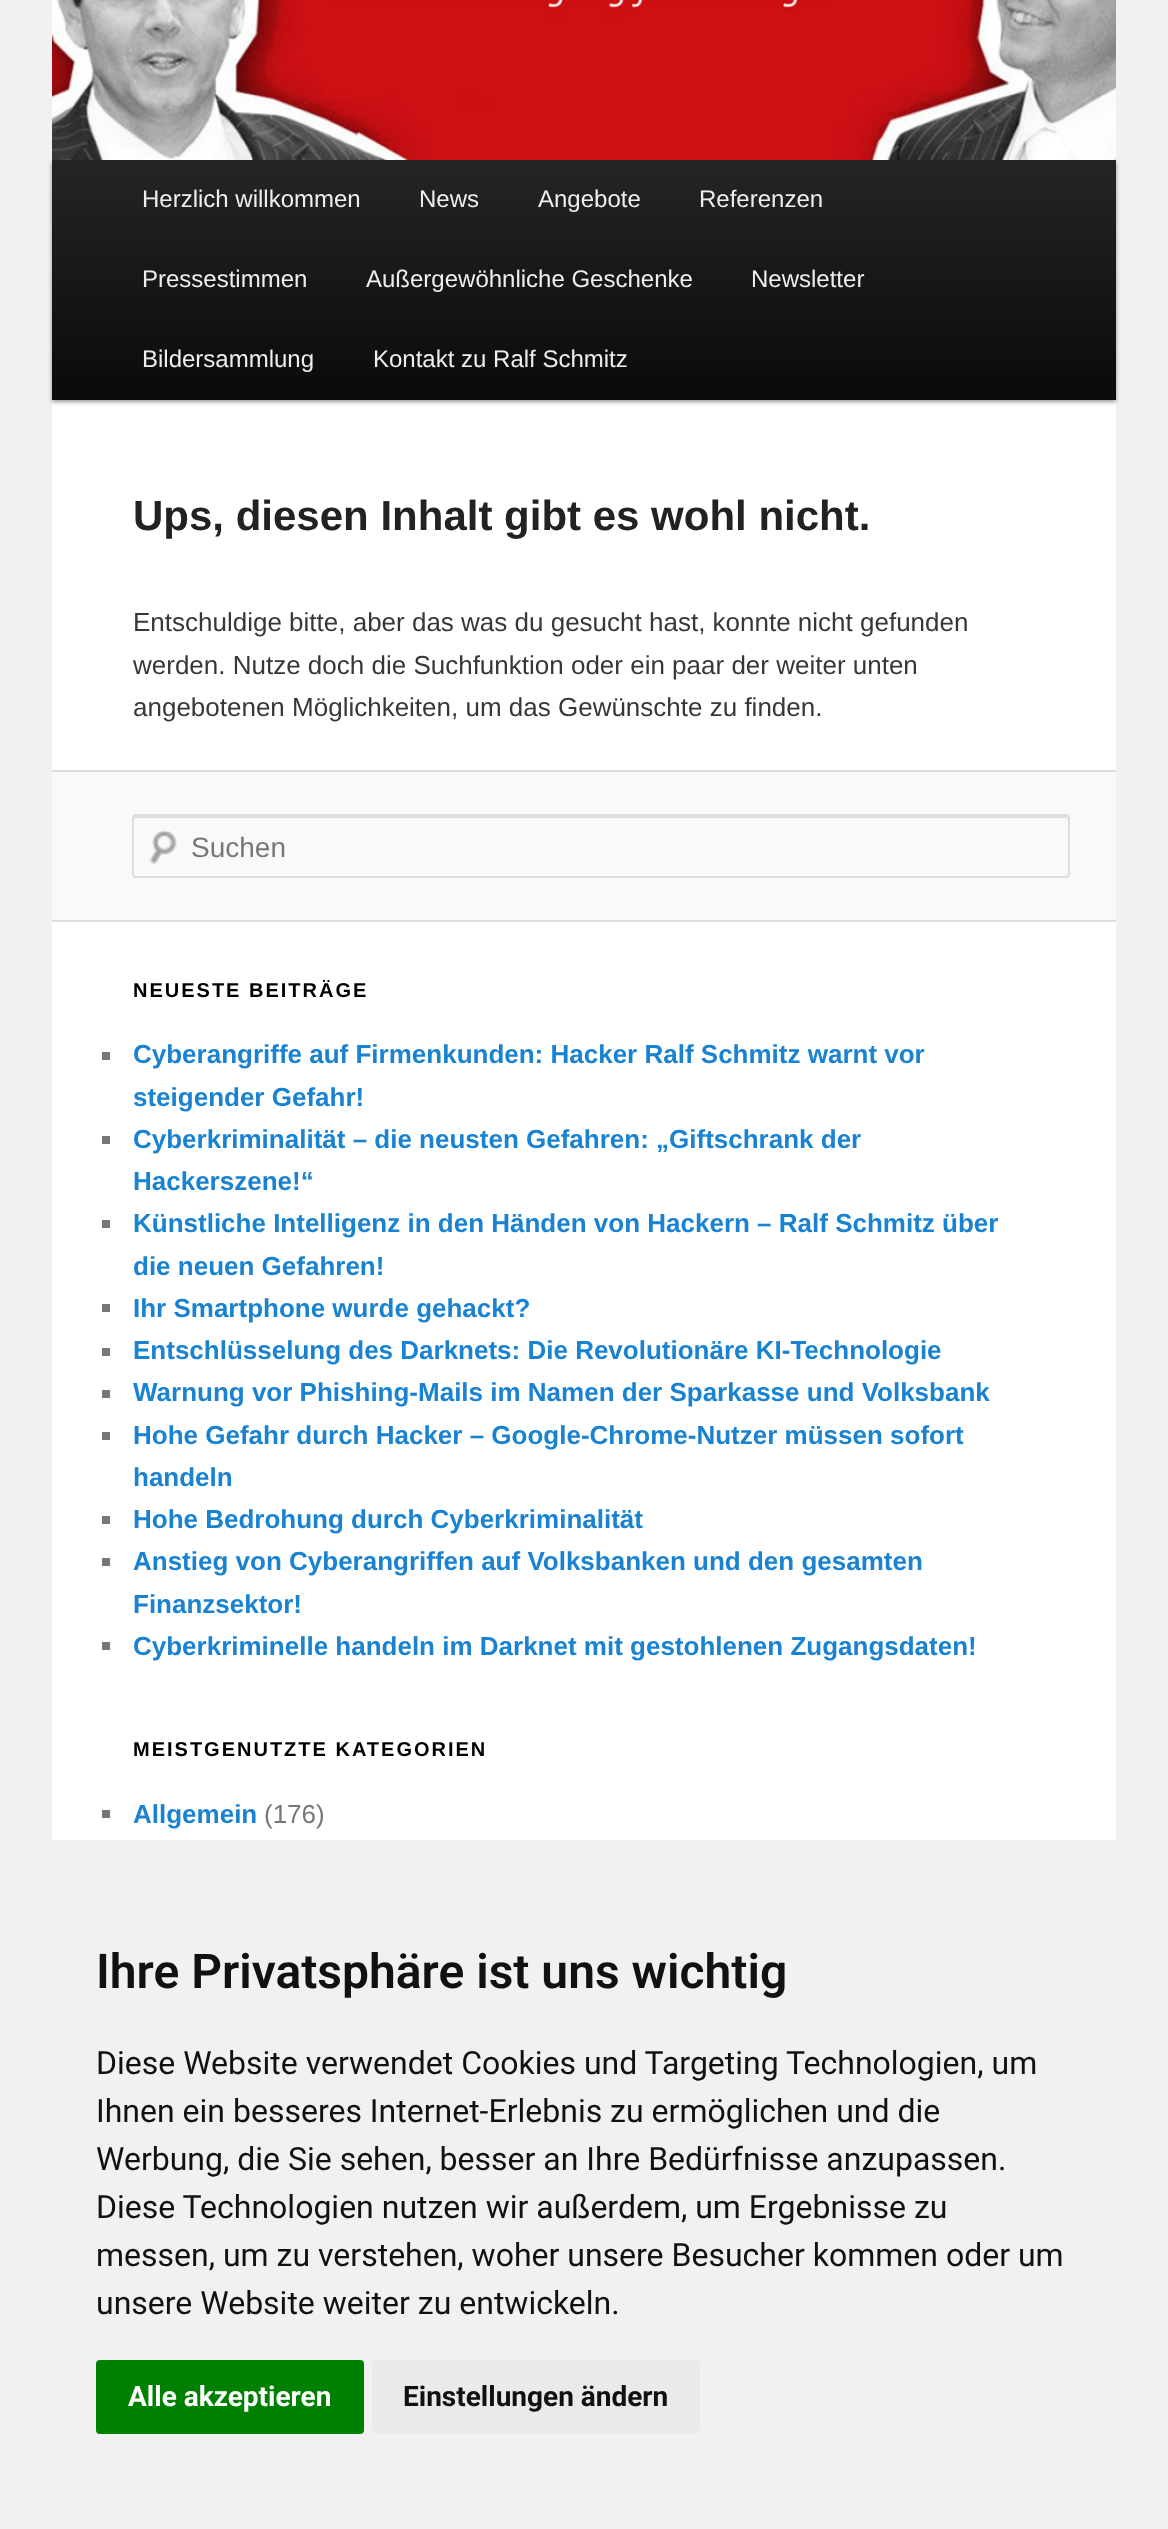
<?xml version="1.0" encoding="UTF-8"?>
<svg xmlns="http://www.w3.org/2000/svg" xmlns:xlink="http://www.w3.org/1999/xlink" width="1168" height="2529">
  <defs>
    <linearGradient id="g1" gradientUnits="userSpaceOnUse" x1="584" y1="160" x2="584" y2="400"><stop offset="0" stop-color="#252525" /><stop offset="1" stop-color="#0a0a0a" /></linearGradient>
  </defs>
  <rect width="100%" height="100%" fill="#f1f1f1" />
  <rect x="52" y="400" width="1064" height="1440" fill="#ffffff" />
  <rect x="52" y="162" width="1064" height="240" fill="#000000" fill-opacity="0.4" filter="blur(2px)" />
  <image x="52" y="0" width="1064" height="160" xlink:href="image1.png" />
  <rect x="52" y="160" width="1064" height="240" fill="url(#g1)" />
  <rect x="52" y="772" width="1064" height="148" fill="#f9f9f9" />
  <rect x="52" y="770" width="1064" height="2" fill="#dddddd" />
  <rect x="52" y="920" width="1064" height="2" fill="#dddddd" />
  <image x="149" y="830" width="28" height="35" xlink:href="image2.png" />
  <path d="M 136 818 h 931 l 1 5 v -5 c 0 -1 -1 -2 -2 -2 h -930 c -1 0 -2 1 -2 2 v 1 z" fill="#e0e0e0" />
  <rect x="133" y="815" width="936" height="62" rx="3" fill="none" stroke="#dddddd" stroke-width="2" />
  <rect x="102" y="1052" width="8" height="8" fill="#777777" />
  <rect x="102" y="1136" width="8" height="8" fill="#777777" />
  <rect x="102" y="1220" width="8" height="8" fill="#777777" />
  <rect x="102" y="1304" width="8" height="8" fill="#777777" />
  <rect x="102" y="1348" width="8" height="8" fill="#777777" />
  <rect x="102" y="1390" width="8" height="8" fill="#777777" />
  <rect x="102" y="1432" width="8" height="8" fill="#777777" />
  <rect x="102" y="1516" width="8" height="8" fill="#777777" />
  <rect x="102" y="1558" width="8" height="8" fill="#777777" />
  <rect x="102" y="1642" width="8" height="8" fill="#777777" />
  <rect x="102" y="1810" width="8" height="8" fill="#777777" />
  <rect x="96" y="2360" width="268" height="74" rx="4" fill="#008000" />
  <rect x="372" y="2360" width="328" height="74" rx="4" fill="#eaeaea" />
  <text x="142" y="207" style="font-family: Liberation Sans; font-size: 24px; fill: #eeeeee">Herzlich willkommen</text>
  <text x="419" y="207" style="font-family: Liberation Sans; font-size: 24px; fill: #eeeeee">News</text>
  <text x="538" y="207" style="font-family: Liberation Sans; font-size: 24px; fill: #eeeeee">Angebote</text>
  <text x="699" y="207" style="font-family: Liberation Sans; font-size: 24px; fill: #eeeeee">Referenzen</text>
  <text x="142" y="287" style="font-family: Liberation Sans; font-size: 24px; fill: #eeeeee">Pressestimmen</text>
  <text x="366" y="287" style="font-family: Liberation Sans; font-size: 24px; fill: #eeeeee">Außergewöhnliche Geschenke</text>
  <text x="751" y="287" style="font-family: Liberation Sans; font-size: 24px; fill: #eeeeee">Newsletter</text>
  <text x="142" y="367" style="font-family: Liberation Sans; font-size: 24px; fill: #eeeeee">Bildersammlung</text>
  <text x="373" y="367" style="font-family: Liberation Sans; font-size: 24px; fill: #eeeeee">Kontakt zu Ralf Schmitz</text>
  <text x="133" y="530" style="font-family: Liberation Sans; font-size: 42px; font-weight: bold; fill: #222222">Ups, diesen Inhalt gibt es wohl nicht.</text>
  <text x="133" y="631" style="font-family: Liberation Sans; font-size: 26px; fill: #373737">Entschuldige bitte, aber das was du gesucht hast, konnte nicht gefunden</text>
  <text x="133" y="674" style="font-family: Liberation Sans; font-size: 26px; fill: #373737">werden. Nutze doch die Suchfunktion oder ein paar der weiter unten</text>
  <text x="133" y="716" style="font-family: Liberation Sans; font-size: 26px; fill: #373737">angebotenen Möglichkeiten, um das Gewünschte zu finden.</text>
  <text x="191" y="857" style="font-family: Liberation Sans; font-size: 28px; fill: #777777">Suchen</text>
  <text x="133" y="997" style="font-family: Liberation Sans; font-size: 20px; font-weight: bold; letter-spacing: 2px; fill: #000000">NEUESTE BEITRÄGE</text>
  <text x="133" y="1063" style="font-family: Liberation Sans; font-size: 26px; font-weight: bold; fill: #1982d1">Cyberangriffe auf Firmenkunden: Hacker Ralf Schmitz warnt vor</text>
  <text x="133" y="1106" style="font-family: Liberation Sans; font-size: 26px; font-weight: bold; fill: #1982d1">steigender Gefahr!</text>
  <text x="133" y="1148" style="font-family: Liberation Sans; font-size: 26px; font-weight: bold; fill: #1982d1">Cyberkriminalität – die neusten Gefahren: „Giftschrank der</text>
  <text x="133" y="1190" style="font-family: Liberation Sans; font-size: 26px; font-weight: bold; fill: #1982d1">Hackerszene!“</text>
  <text x="133" y="1232" style="font-family: Liberation Sans; font-size: 26px; font-weight: bold; fill: #1982d1">Künstliche Intelligenz in den Händen von Hackern – Ralf Schmitz über</text>
  <text x="133" y="1275" style="font-family: Liberation Sans; font-size: 26px; font-weight: bold; fill: #1982d1">die neuen Gefahren!</text>
  <text x="133" y="1317" style="font-family: Liberation Sans; font-size: 26px; font-weight: bold; fill: #1982d1">Ihr Smartphone wurde gehackt?</text>
  <text x="133" y="1359" style="font-family: Liberation Sans; font-size: 26px; font-weight: bold; fill: #1982d1">Entschlüsselung des Darknets: Die Revolutionäre KI-Technologie</text>
  <text x="133" y="1401" style="font-family: Liberation Sans; font-size: 26px; font-weight: bold; fill: #1982d1">Warnung vor Phishing-Mails im Namen der Sparkasse und Volksbank</text>
  <text x="133" y="1444" style="font-family: Liberation Sans; font-size: 26px; font-weight: bold; fill: #1982d1">Hohe Gefahr durch Hacker – Google-Chrome-Nutzer müssen sofort</text>
  <text x="133" y="1486" style="font-family: Liberation Sans; font-size: 26px; font-weight: bold; fill: #1982d1">handeln</text>
  <text x="133" y="1528" style="font-family: Liberation Sans; font-size: 26px; font-weight: bold; fill: #1982d1">Hohe Bedrohung durch Cyberkriminalität</text>
  <text x="133" y="1570" style="font-family: Liberation Sans; font-size: 26px; font-weight: bold; fill: #1982d1">Anstieg von Cyberangriffen auf Volksbanken und den gesamten</text>
  <text x="133" y="1613" style="font-family: Liberation Sans; font-size: 26px; font-weight: bold; fill: #1982d1">Finanzsektor!</text>
  <text x="133" y="1655" style="font-family: Liberation Sans; font-size: 26px; font-weight: bold; fill: #1982d1">Cyberkriminelle handeln im Darknet mit gestohlenen Zugangsdaten!</text>
  <text x="133" y="1756" style="font-family: Liberation Sans; font-size: 20px; font-weight: bold; letter-spacing: 2px; fill: #000000">MEISTGENUTZTE KATEGORIEN</text>
  <text x="133" y="1823" style="font-family: Liberation Sans; font-size: 26px; font-weight: bold; fill: #1982d1">Allgemein</text>
  <text x="264" y="1823" style="font-family: Liberation Sans; font-size: 26px; fill: #777777">(176)</text>
  <text x="96" y="1988" style="font-family: Roboto; font-size: 48px; font-weight: 600; fill: #111111">Ihre Privatsphäre ist uns wichtig</text>
  <text x="96" y="2074" style="font-family: Roboto; font-size: 32px; fill: #111111">Diese Website verwendet Cookies und Targeting Technologien, um</text>
  <text x="96" y="2122" style="font-family: Roboto; font-size: 32px; fill: #111111">Ihnen ein besseres Internet-Erlebnis zu ermöglichen und die</text>
  <text x="96" y="2170" style="font-family: Roboto; font-size: 32px; fill: #111111">Werbung, die Sie sehen, besser an Ihre Bedürfnisse anzupassen.</text>
  <text x="96" y="2218" style="font-family: Roboto; font-size: 32px; fill: #111111">Diese Technologien nutzen wir außerdem, um Ergebnisse zu</text>
  <text x="96" y="2266" style="font-family: Roboto; font-size: 32px; fill: #111111">messen, um zu verstehen, woher unsere Besucher kommen oder um</text>
  <text x="96" y="2314" style="font-family: Roboto; font-size: 32px; fill: #111111">unsere Website weiter zu entwickeln.</text>
  <text x="128" y="2406" style="font-family: Roboto; font-size: 28px; font-weight: bold; fill: #ffffff">Alle akzeptieren</text>
  <text x="403" y="2406" style="font-family: Roboto; font-size: 28px; font-weight: bold; fill: #111111">Einstellungen ändern</text>
</svg>
